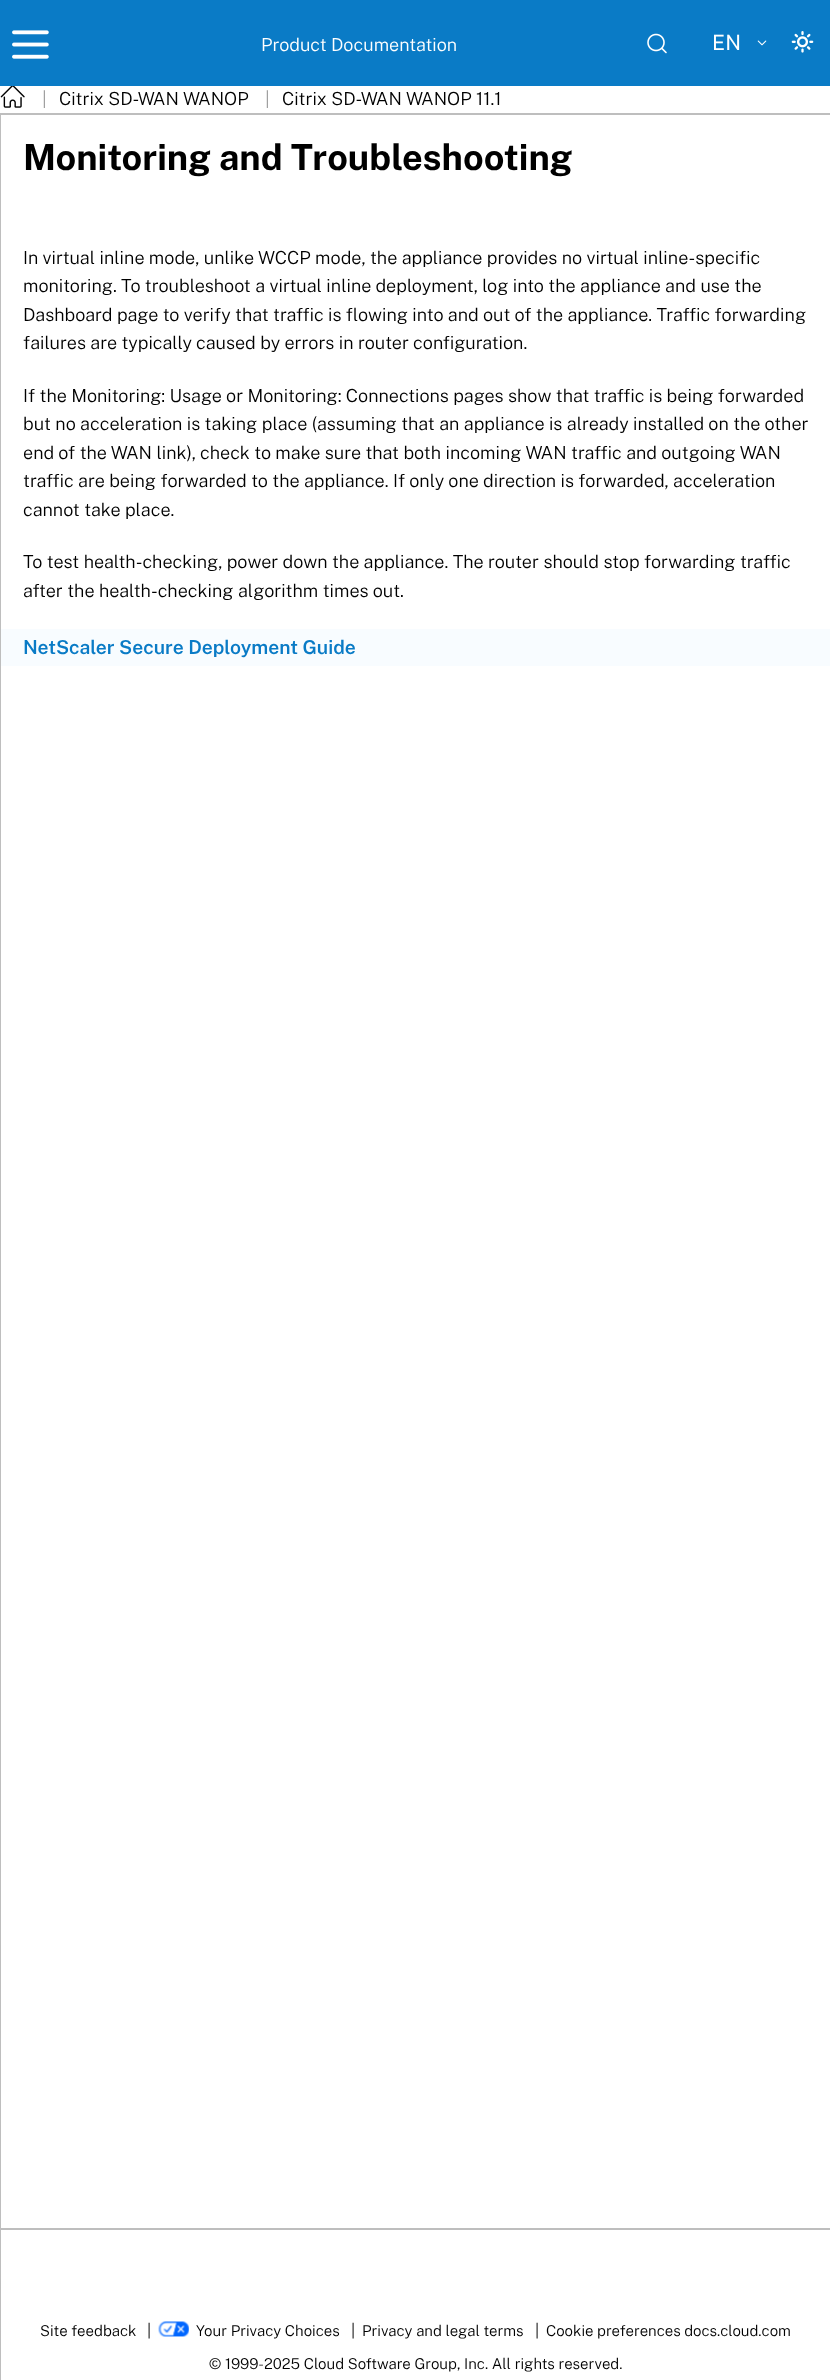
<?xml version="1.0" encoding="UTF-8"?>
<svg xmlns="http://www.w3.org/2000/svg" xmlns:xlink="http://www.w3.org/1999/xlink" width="830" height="2380">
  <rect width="100%" height="100%" fill="#ffffff" />
  <rect width="830" height="86" fill="#0a7bc6" />
  <image x="12" y="30" width="37" height="29" xlink:href="image1.png" />
  <image x="647" y="33" width="20" height="21" xlink:href="image2.png" />
  <image x="757" y="40" width="10" height="6" xlink:href="image3.png" />
  <image x="791" y="31" width="23" height="22" xlink:href="image4.png" />
  <rect y="2228" width="830" height="2" fill="#bebebe" />
  <rect y="115" width="1" height="2265" fill="#bebebe" />
  <rect y="113" width="830" height="2" fill="#bebebe" />
  <image x="0" y="86" width="25" height="22" xlink:href="image5.png" />
  <rect x="1" y="629" width="829" height="37" fill="#f8fcff" />
  <image x="158" y="2321" width="31" height="16" xlink:href="image6.png" />
  <text x="261" y="51" style="font-family: Public Sans; font-size: 18px; font-weight: 300; fill: #ffffff">Product Documentation</text>
  <text x="712" y="50" style="font-family: Public Sans; font-size: 21px; fill: #ffffff">EN</text>
  <text x="42" y="105" style="font-family: Public Sans; font-size: 18px; font-weight: 300; fill: #999999">|</text>
  <text x="59" y="105" style="font-family: Public Sans; font-size: 18px; font-weight: 300; fill: #000000">Citrix SD-WAN WANOP</text>
  <text x="265" y="105" style="font-family: Public Sans; font-size: 18px; font-weight: 300; fill: #999999">|</text>
  <text x="282" y="105" style="font-family: Public Sans; font-size: 18px; font-weight: 300; fill: #000000">Citrix SD-WAN WANOP 11.1</text>
  <text x="23" y="170" style="font-family: Public Sans; font-size: 36px; font-weight: bold; fill: #000000">Monitoring and Troubleshooting</text>
  <text x="23" y="264" style="font-family: Public Sans; font-size: 18px; font-weight: 300; fill: #000000">In virtual inline mode, unlike WCCP mode, the appliance provides no virtual inline-specific</text>
  <text x="23" y="292" style="font-family: Public Sans; font-size: 18px; font-weight: 300; fill: #000000">monitoring. To troubleshoot a virtual inline deployment, log into the appliance and use the</text>
  <text x="23" y="321" style="font-family: Public Sans; font-size: 18px; font-weight: 300; fill: #000000">Dashboard page to verify that traffic is flowing into and out of the appliance. Traffic forwarding</text>
  <text x="23" y="349" style="font-family: Public Sans; font-size: 18px; font-weight: 300; fill: #000000">failures are typically caused by errors in router configuration.</text>
  <text x="23" y="402" style="font-family: Public Sans; font-size: 18px; font-weight: 300; fill: #000000">If the Monitoring: Usage or Monitoring: Connections pages show that traffic is being forwarded</text>
  <text x="23" y="430" style="font-family: Public Sans; font-size: 18px; font-weight: 300; fill: #000000">but no acceleration is taking place (assuming that an appliance is already installed on the other</text>
  <text x="23" y="459" style="font-family: Public Sans; font-size: 18px; font-weight: 300; fill: #000000">end of the WAN link), check to make sure that both incoming WAN traffic and outgoing WAN</text>
  <text x="23" y="487" style="font-family: Public Sans; font-size: 18px; font-weight: 300; fill: #000000">traffic are being forwarded to the appliance. If only one direction is forwarded, acceleration</text>
  <text x="23" y="516" style="font-family: Public Sans; font-size: 18px; font-weight: 300; fill: #000000">cannot take place.</text>
  <text x="23" y="568" style="font-family: Public Sans; font-size: 18px; font-weight: 300; fill: #000000">To test health-checking, power down the appliance. The router should stop forwarding traffic</text>
  <text x="23" y="597" style="font-family: Public Sans; font-size: 18px; font-weight: 300; fill: #000000">after the health-checking algorithm times out.</text>
  <text x="23" y="654" style="font-family: Public Sans; font-size: 19.25px; font-weight: 600; fill: #0a7bc6">NetScaler Secure Deployment Guide</text>
  <text x="40" y="2336" style="font-family: Public Sans; font-size: 15px; font-weight: 300; fill: #000000">Site feedback</text>
  <text x="147" y="2336" style="font-family: Public Sans; font-size: 16px; font-weight: 300; fill: #000000">|</text>
  <text x="196" y="2336" style="font-family: Public Sans; font-size: 15px; font-weight: 300; fill: #000000">Your Privacy Choices</text>
  <text x="351" y="2336" style="font-family: Public Sans; font-size: 16px; font-weight: 300; fill: #000000">|</text>
  <text x="362" y="2336" style="font-family: Public Sans; font-size: 15px; font-weight: 300; fill: #000000">Privacy and legal terms</text>
  <text x="535" y="2336" style="font-family: Public Sans; font-size: 16px; font-weight: 300; fill: #000000">|</text>
  <text x="546" y="2336" style="font-family: Public Sans; font-size: 15px; font-weight: 300; fill: #000000">Cookie preferences docs.cloud.com</text>
  <text x="209" y="2369" style="font-family: Public Sans; font-size: 15px; font-weight: 300; fill: #000000">© 1999-2025 Cloud Software Group, Inc. All rights reserved.</text>
</svg>
